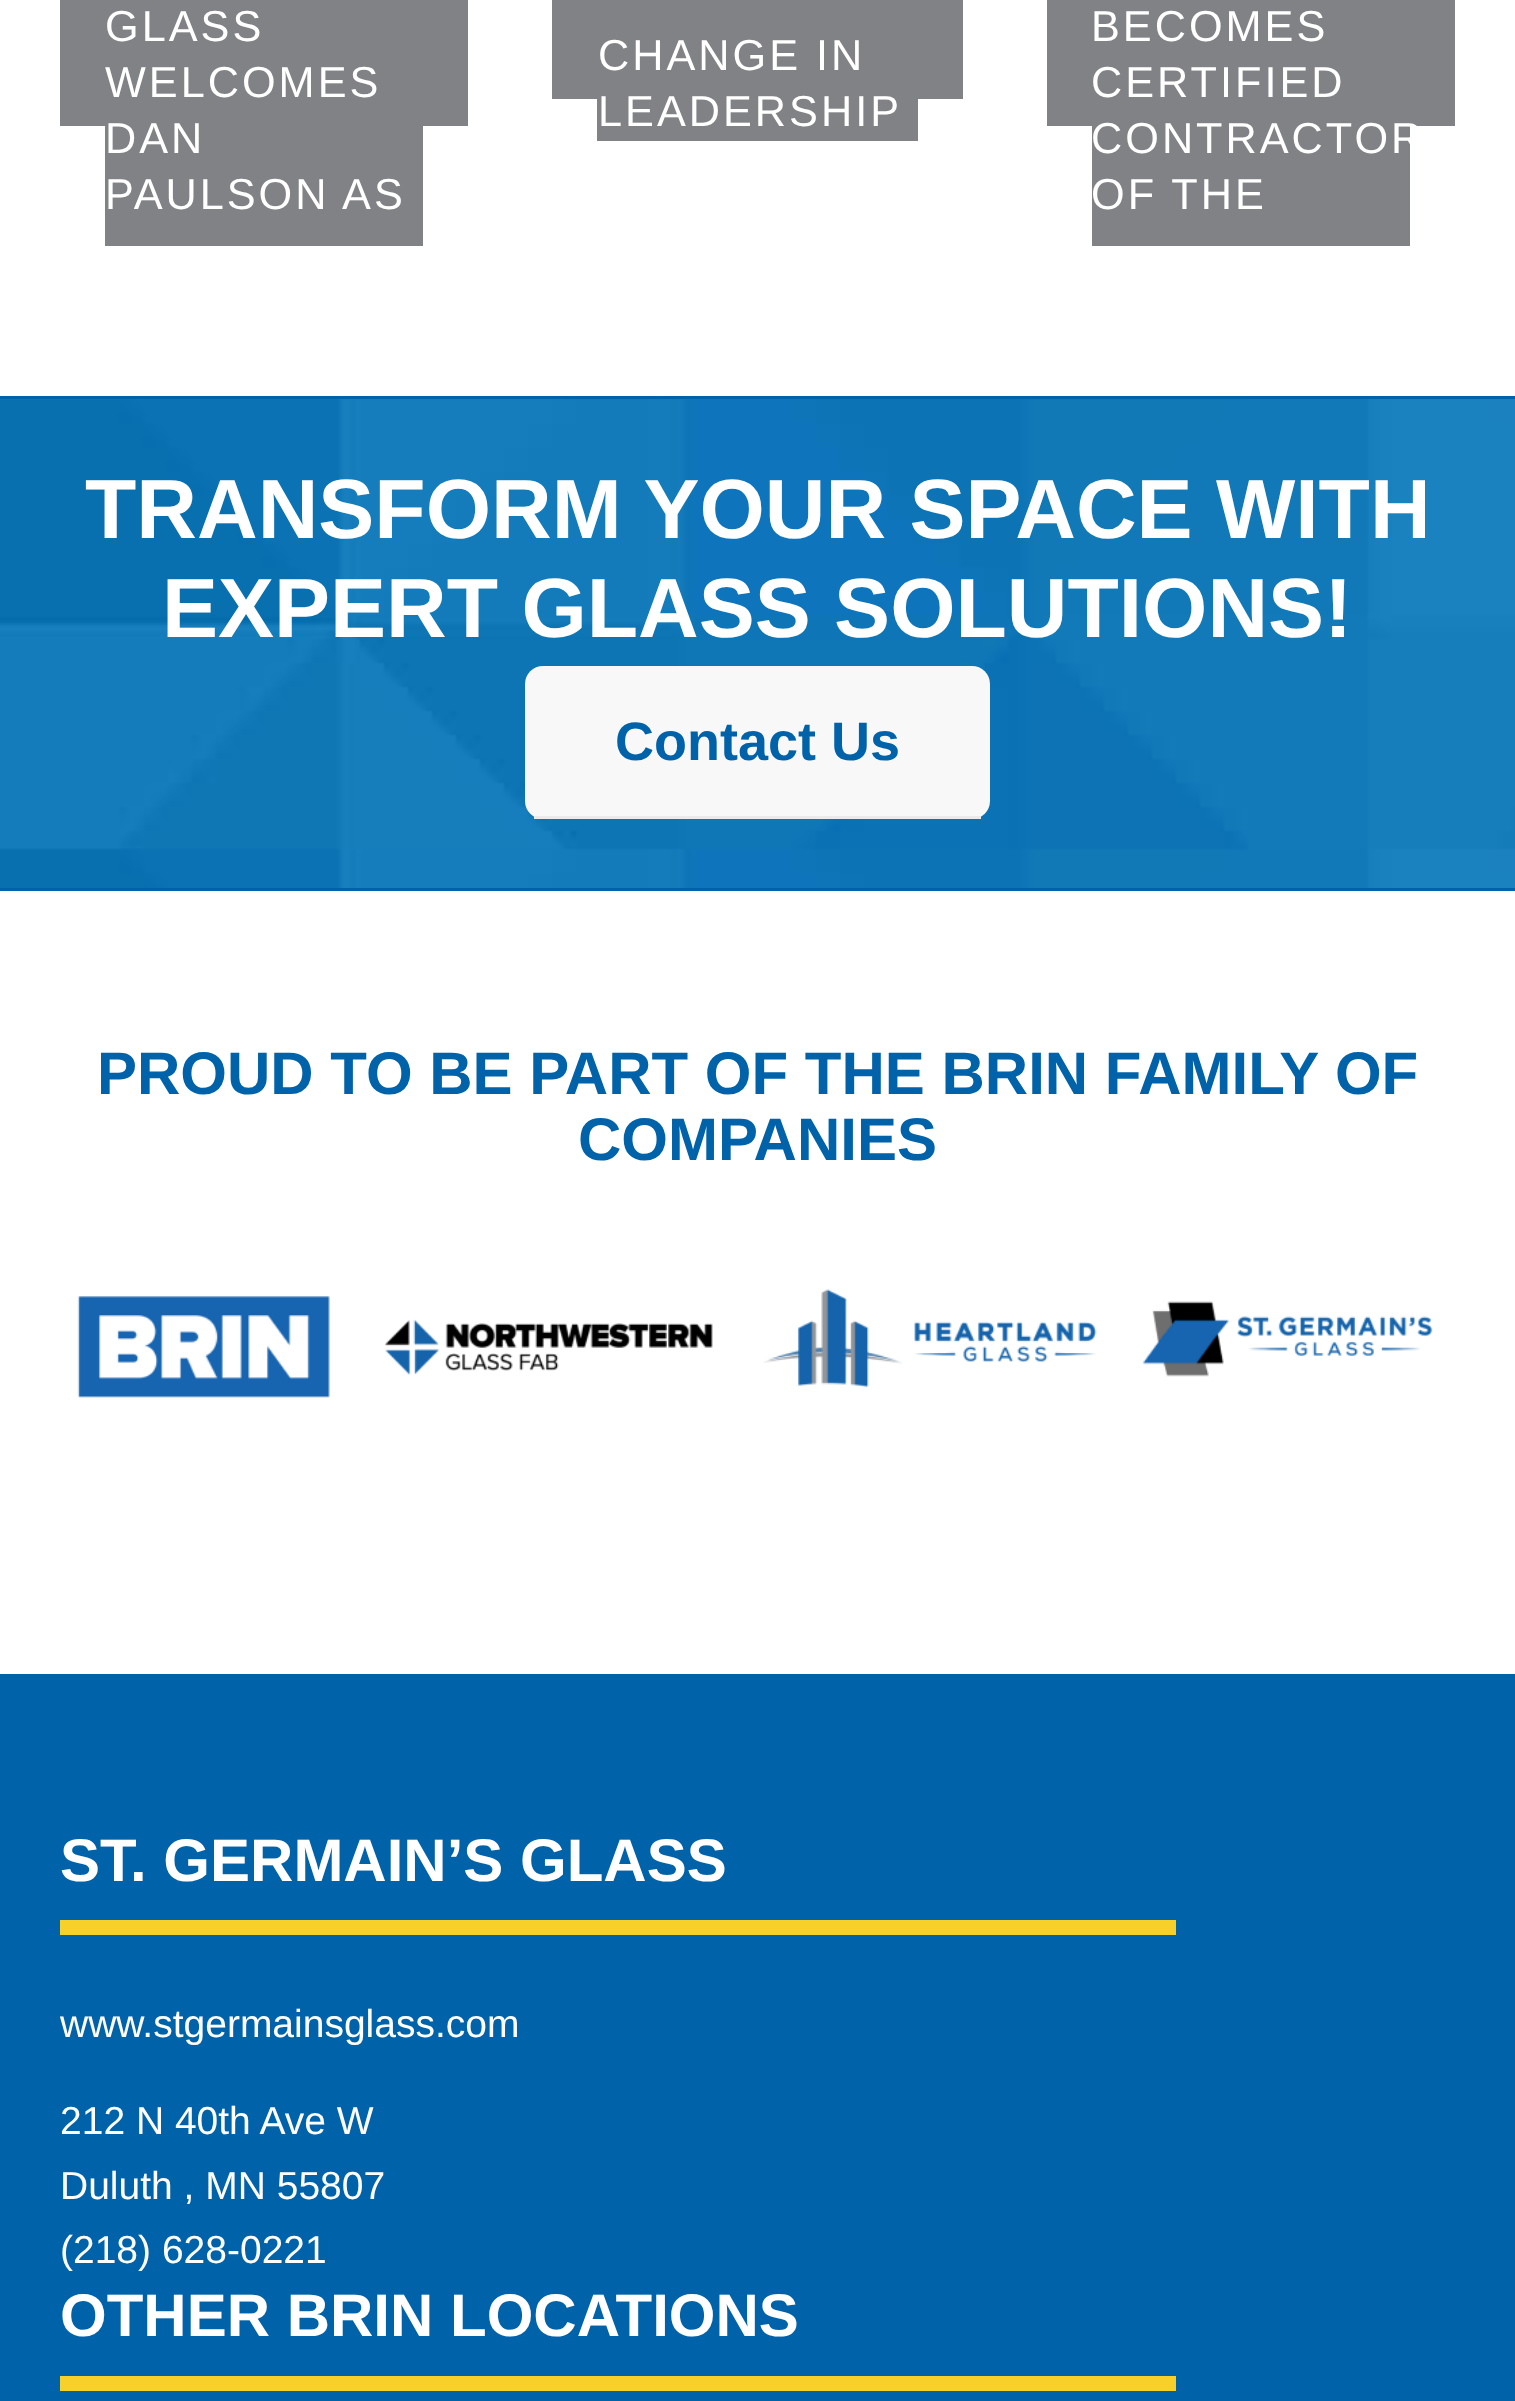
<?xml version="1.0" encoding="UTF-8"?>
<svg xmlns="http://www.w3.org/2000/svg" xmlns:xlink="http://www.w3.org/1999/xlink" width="1515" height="2401">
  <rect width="100%" height="100%" fill="#ffffff" />
  <rect x="60" width="408" height="126" fill="#818285" />
  <rect x="105" y="126" width="318" height="120" fill="#808285" />
  <rect x="552" width="411" height="99" fill="#818285" />
  <rect x="597" y="99" width="321" height="42" fill="#808285" />
  <rect x="1047" width="408" height="126" fill="#818285" />
  <rect x="1092" y="126" width="318" height="120" fill="#808285" />
  <image x="0" y="399" width="1515" height="489" xlink:href="image1.png" />
  <rect y="396" width="1515" height="3" fill="#0063aa" />
  <rect x="525" y="666" width="465" height="153" rx="18" fill="#f8f8f8" />
  <rect x="534" y="816" width="447" height="3" fill="#ebebeb" />
  <rect y="888" width="1515" height="3" fill="#0063aa" />
  <image x="77" y="1289" width="1356" height="109" xlink:href="image2.png" />
  <rect y="1674" width="1515" height="727" fill="#0063aa" />
  <rect x="60" y="1920" width="1116" height="15" fill="#f7d129" />
  <rect x="60" y="2376" width="1116" height="15" fill="#f7d129" />
  <text x="105" y="41" style="font-family: Liberation Sans; font-size: 43.25px; letter-spacing: 3px; fill: #ffffff">GLASS</text>
  <text x="105" y="97" style="font-family: Liberation Sans; font-size: 43.25px; letter-spacing: 3px; fill: #ffffff">WELCOMES</text>
  <text x="105" y="153" style="font-family: Liberation Sans; font-size: 43.25px; letter-spacing: 3px; fill: #ffffff">DAN</text>
  <text x="105" y="209" style="font-family: Liberation Sans; font-size: 43.25px; letter-spacing: 3px; fill: #ffffff">PAULSON AS</text>
  <text x="598" y="70" style="font-family: Liberation Sans; font-size: 43.25px; letter-spacing: 3px; fill: #ffffff">CHANGE IN</text>
  <text x="598" y="126" style="font-family: Liberation Sans; font-size: 43.25px; letter-spacing: 3px; fill: #ffffff">LEADERSHIP</text>
  <text x="1091" y="41" style="font-family: Liberation Sans; font-size: 43.25px; letter-spacing: 3px; fill: #ffffff">BECOMES</text>
  <text x="1091" y="97" style="font-family: Liberation Sans; font-size: 43.25px; letter-spacing: 3px; fill: #ffffff">CERTIFIED</text>
  <text x="1091" y="153" style="font-family: Liberation Sans; font-size: 43.25px; letter-spacing: 3px; fill: #ffffff">CONTRACTOR</text>
  <text x="1091" y="209" style="font-family: Liberation Sans; font-size: 43.25px; letter-spacing: 3px; fill: #ffffff">OF THE</text>
  <text x="85" y="538" style="font-family: Liberation Sans; font-size: 84px; font-weight: bold; fill: #ffffff">TRANSFORM YOUR SPACE WITH</text>
  <text x="162" y="637" style="font-family: Liberation Sans; font-size: 84px; font-weight: bold; fill: #ffffff">EXPERT GLASS SOLUTIONS!</text>
  <text x="615" y="760" style="font-family: Liberation Sans; font-size: 54px; font-weight: bold; fill: #0063aa">Contact Us</text>
  <text x="97" y="1094" style="font-family: Liberation Sans; font-size: 60px; font-weight: bold; fill: #0063aa">PROUD TO BE PART OF THE BRIN FAMILY OF</text>
  <text x="578" y="1160" style="font-family: Liberation Sans; font-size: 60px; font-weight: bold; fill: #0063aa">COMPANIES</text>
  <text x="60" y="1881" style="font-family: Liberation Sans; font-size: 60px; font-weight: bold; fill: #ffffff">ST. GERMAIN’S GLASS</text>
  <text x="60" y="2037" style="font-family: Liberation Sans; font-size: 39px; fill: #ffffff">www.stgermainsglass.com</text>
  <text x="60" y="2134" style="font-family: Liberation Sans; font-size: 39px; fill: #ffffff">212 N 40th Ave W</text>
  <text x="60" y="2199" style="font-family: Liberation Sans; font-size: 39px; fill: #ffffff">Duluth , MN 55807</text>
  <text x="60" y="2263" style="font-family: Liberation Sans; font-size: 39px; fill: #ffffff">(218) 628-0221</text>
  <text x="60" y="2336" style="font-family: Liberation Sans; font-size: 60px; font-weight: bold; fill: #ffffff">OTHER BRIN LOCATIONS</text>
</svg>
